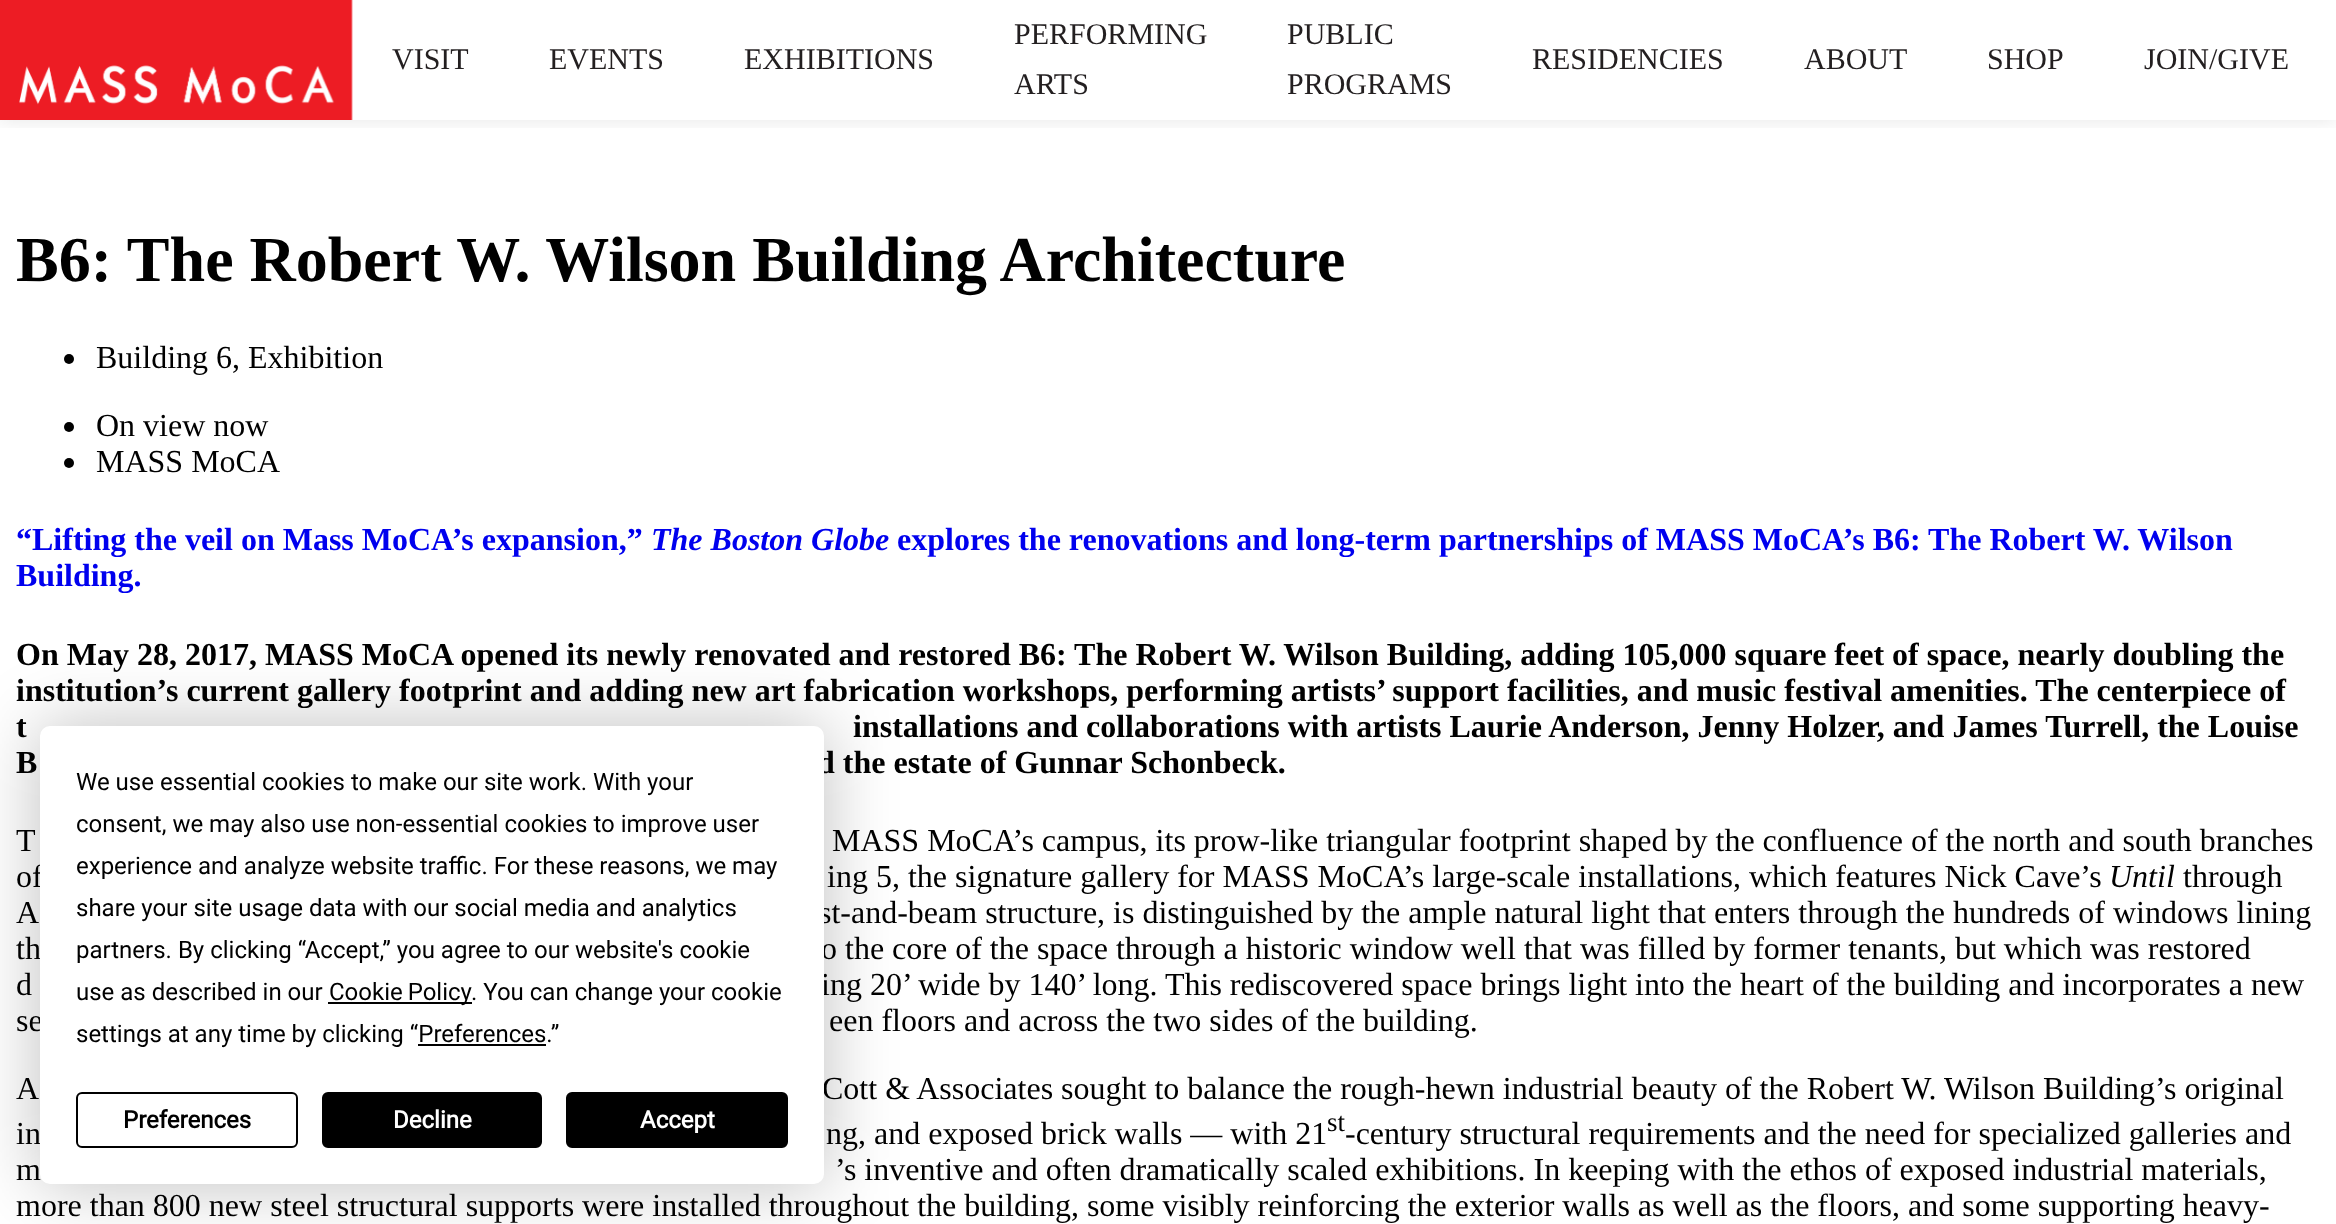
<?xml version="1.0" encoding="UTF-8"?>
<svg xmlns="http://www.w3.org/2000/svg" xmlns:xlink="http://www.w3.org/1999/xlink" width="2336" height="1224">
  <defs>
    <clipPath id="clip1"><rect x="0" y="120" width="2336" height="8" /></clipPath>
  </defs>
  <rect width="100%" height="100%" fill="#ffffff" />
  <g clip-path="url(#clip1)">
    <rect width="2336" height="120" fill="#000000" fill-opacity="0.1" filter="blur(10px)" />
  </g>
  <image x="0" y="0" width="353" height="120" xlink:href="image1.png" />
  <circle cx="69" cy="359" r="5" fill="#000000" />
  <circle cx="69" cy="427" r="5" fill="#000000" />
  <circle cx="69" cy="463" r="5" fill="#000000" />
  <rect x="40" y="726" width="784" height="458" rx="10" fill="#000000" fill-opacity="0.25" filter="blur(35px)" />
  <text x="392" y="69" style="font-family: Liberation Serif; font-size: 30px; fill: #231f20">VISIT</text>
  <text x="549" y="69" style="font-family: Liberation Serif; font-size: 30px; fill: #231f20">EVENTS</text>
  <text x="744" y="69" style="font-family: Liberation Serif; font-size: 30px; fill: #231f20">EXHIBITIONS</text>
  <text x="1014" y="44" style="font-family: Liberation Serif; font-size: 30px; fill: #231f20">PERFORMING</text>
  <text x="1014" y="94" style="font-family: Liberation Serif; font-size: 30px; fill: #231f20">ARTS</text>
  <text x="1287" y="44" style="font-family: Liberation Serif; font-size: 30px; fill: #231f20">PUBLIC</text>
  <text x="1287" y="94" style="font-family: Liberation Serif; font-size: 30px; fill: #231f20">PROGRAMS</text>
  <text x="1532" y="69" style="font-family: Liberation Serif; font-size: 30px; fill: #231f20">RESIDENCIES</text>
  <text x="1804" y="69" style="font-family: Liberation Serif; font-size: 30px; fill: #231f20">ABOUT</text>
  <text x="1987" y="69" style="font-family: Liberation Serif; font-size: 30px; fill: #231f20">SHOP</text>
  <text x="2144" y="69" style="font-family: Liberation Serif; font-size: 30px; fill: #231f20">JOIN/GIVE</text>
  <text x="16" y="281" style="font-family: Liberation Serif; font-size: 64px; font-weight: bold; fill: #000000">B6: The Robert W. Wilson Building Architecture</text>
  <text x="96" y="368" style="font-family: Liberation Serif; font-size: 32px; fill: #000000">Building 6, Exhibition</text>
  <text x="96" y="436" style="font-family: Liberation Serif; font-size: 32px; fill: #000000">On view now</text>
  <text x="96" y="472" style="font-family: Liberation Serif; font-size: 32px; fill: #000000">MASS MoCA</text>
  <text x="16" y="550" style="font-family: Liberation Serif; font-size: 32px; font-weight: bold; fill: #0000ee">“Lifting the veil on Mass MoCA’s expansion,”</text>
  <text x="651" y="550" style="font-family: Liberation Serif; font-size: 32px; font-weight: bold; font-style: italic; fill: #0000ee">The Boston Globe</text>
  <text x="897" y="550" style="font-family: Liberation Serif; font-size: 32px; font-weight: bold; fill: #0000ee">explores the renovations and long-term partnerships of MASS MoCA’s B6: The Robert W. Wilson</text>
  <text x="16" y="586" style="font-family: Liberation Serif; font-size: 32px; font-weight: bold; fill: #0000ee">Building.</text>
  <text x="16" y="665" style="font-family: Liberation Serif; font-size: 32px; font-weight: bold; fill: #000000">On May 28, 2017, MASS MoCA opened its newly renovated and restored B6: The Robert W. Wilson Building, adding 105,000 square feet of space, nearly doubling the</text>
  <text x="16" y="701" style="font-family: Liberation Serif; font-size: 32px; font-weight: bold; fill: #000000">institution’s current gallery footprint and adding new art fabrication workshops, performing artists’ support facilities, and music festival amenities. The centerpiece of</text>
  <text x="16" y="737" style="font-family: Liberation Serif; font-size: 32px; font-weight: bold; fill: #000000">t</text>
  <text x="853" y="737" style="font-family: Liberation Serif; font-size: 32px; font-weight: bold; fill: #000000">installations and collaborations with artists Laurie Anderson, Jenny Holzer, and James Turrell, the Louise</text>
  <text x="16" y="773" style="font-family: Liberation Serif; font-size: 32px; font-weight: bold; fill: #000000">B</text>
  <text x="817" y="773" style="font-family: Liberation Serif; font-size: 32px; font-weight: bold; fill: #000000">d the estate of Gunnar Schonbeck.</text>
  <text x="16" y="851" style="font-family: Liberation Serif; font-size: 32px; fill: #000000">T</text>
  <text x="832" y="851" style="font-family: Liberation Serif; font-size: 32px; fill: #000000">MASS MoCA’s campus, its prow-like triangular footprint shaped by the confluence of the north and south branches</text>
  <text x="16" y="887" style="font-family: Liberation Serif; font-size: 32px; fill: #000000">of</text>
  <text x="827" y="887" style="font-family: Liberation Serif; font-size: 32px; fill: #000000">ing 5, the signature gallery for MASS MoCA’s large-scale installations, which features Nick Cave’s</text>
  <text x="2109" y="887" style="font-family: Liberation Serif; font-size: 32px; font-style: italic; fill: #000000">Until</text>
  <text x="2183" y="887" style="font-family: Liberation Serif; font-size: 32px; fill: #000000">through</text>
  <text x="16" y="923" style="font-family: Liberation Serif; font-size: 32px; fill: #000000">A</text>
  <text x="819" y="923" style="font-family: Liberation Serif; font-size: 32px; fill: #000000">st-and-beam structure, is distinguished by the ample natural light that enters through the hundreds of windows lining</text>
  <text x="16" y="959" style="font-family: Liberation Serif; font-size: 32px; fill: #000000">th</text>
  <text x="821" y="959" style="font-family: Liberation Serif; font-size: 32px; fill: #000000">o the core of the space through a historic window well that was filled by former tenants, but which was restored</text>
  <text x="16" y="995" style="font-family: Liberation Serif; font-size: 32px; fill: #000000">d</text>
  <text x="821" y="995" style="font-family: Liberation Serif; font-size: 32px; fill: #000000">ing 20’ wide by 140’ long. This rediscovered space brings light into the heart of the building and incorporates a new</text>
  <text x="16" y="1031" style="font-family: Liberation Serif; font-size: 32px; fill: #000000">se</text>
  <text x="829" y="1031" style="font-family: Liberation Serif; font-size: 32px; fill: #000000">een floors and across the two sides of the building.</text>
  <text x="16" y="1099" style="font-family: Liberation Serif; font-size: 32px; fill: #000000">A</text>
  <text x="822" y="1099" style="font-family: Liberation Serif; font-size: 32px; fill: #000000">Cott &amp; Associates sought to balance the rough-hewn industrial beauty of the Robert W. Wilson Building’s original</text>
  <text x="16" y="1144" style="font-family: Liberation Serif; font-size: 32px; fill: #000000">in</text>
  <text x="826" y="1144" style="font-family: Liberation Serif; font-size: 32px; fill: #000000">ng, and exposed brick walls — with 21</text>
  <text x="1327" y="1131" style="font-family: Liberation Serif; font-size: 27px; fill: #000000">st</text>
  <text x="1345" y="1144" style="font-family: Liberation Serif; font-size: 32px; fill: #000000">-century structural requirements and the need for specialized galleries and</text>
  <text x="16" y="1180" style="font-family: Liberation Serif; font-size: 32px; fill: #000000">m</text>
  <text x="835" y="1180" style="font-family: Liberation Serif; font-size: 32px; fill: #000000">’s inventive and often dramatically scaled exhibitions. In keeping with the ethos of exposed industrial materials,</text>
  <text x="16" y="1216" style="font-family: Liberation Serif; font-size: 32px; fill: #000000">more than 800 new steel structural supports were installed throughout the building, some visibly reinforcing the exterior walls as well as the floors, and some supporting heavy-</text>
  <rect x="40" y="726" width="784" height="458" rx="10" fill="#ffffff" />
  <text x="76" y="790" style="font-family: Roboto; font-size: 24px; fill: #000000">We use essential cookies to make our site work. With your</text>
  <text x="76" y="832" style="font-family: Roboto; font-size: 24px; fill: #000000">consent, we may also use non-essential cookies to improve user</text>
  <text x="76" y="874" style="font-family: Roboto; font-size: 24px; fill: #000000">experience and analyze website traffic. For these reasons, we may</text>
  <text x="76" y="916" style="font-family: Roboto; font-size: 24px; fill: #000000">share your site usage data with our social media and analytics</text>
  <text x="76" y="958" style="font-family: Roboto; font-size: 24px; fill: #000000">partners. By clicking “Accept,” you agree to our website's cookie</text>
  <text x="76" y="1000" style="font-family: Roboto; font-size: 24px; fill: #000000">use as described in our</text>
  <rect x="328" y="1002" width="144" height="2" fill="#000000" />
  <text x="329" y="1000" word-spacing="-1" style="font-family: Roboto; font-size: 24px; fill: #000000">Cookie Policy</text>
  <text x="471" y="1000" style="font-family: Roboto; font-size: 24px; fill: #000000">. You can change your cookie</text>
  <text x="76" y="1042" style="font-family: Roboto; font-size: 24px; fill: #000000">settings at any time by clicking “Preferences.”</text>
  <rect x="418" y="1044" width="128" height="2" fill="#000000" />
  <rect x="77" y="1093" width="220" height="54" rx="5" fill="none" stroke="#000000" stroke-width="2" />
  <text x="123" y="1128" style="font-family: Roboto; font-size: 24px; font-weight: bold; fill: #000000">Preferences</text>
  <rect x="323" y="1093" width="218" height="54" rx="5" fill="#000000" stroke="#000000" stroke-width="2" />
  <text x="393" y="1128" style="font-family: Roboto; font-size: 24px; font-weight: bold; fill: #ffffff">Decline</text>
  <rect x="567" y="1093" width="220" height="54" rx="5" fill="#000000" stroke="#000000" stroke-width="2" />
  <text x="640" y="1128" style="font-family: Roboto; font-size: 24px; font-weight: bold; fill: #ffffff">Accept</text>
</svg>
